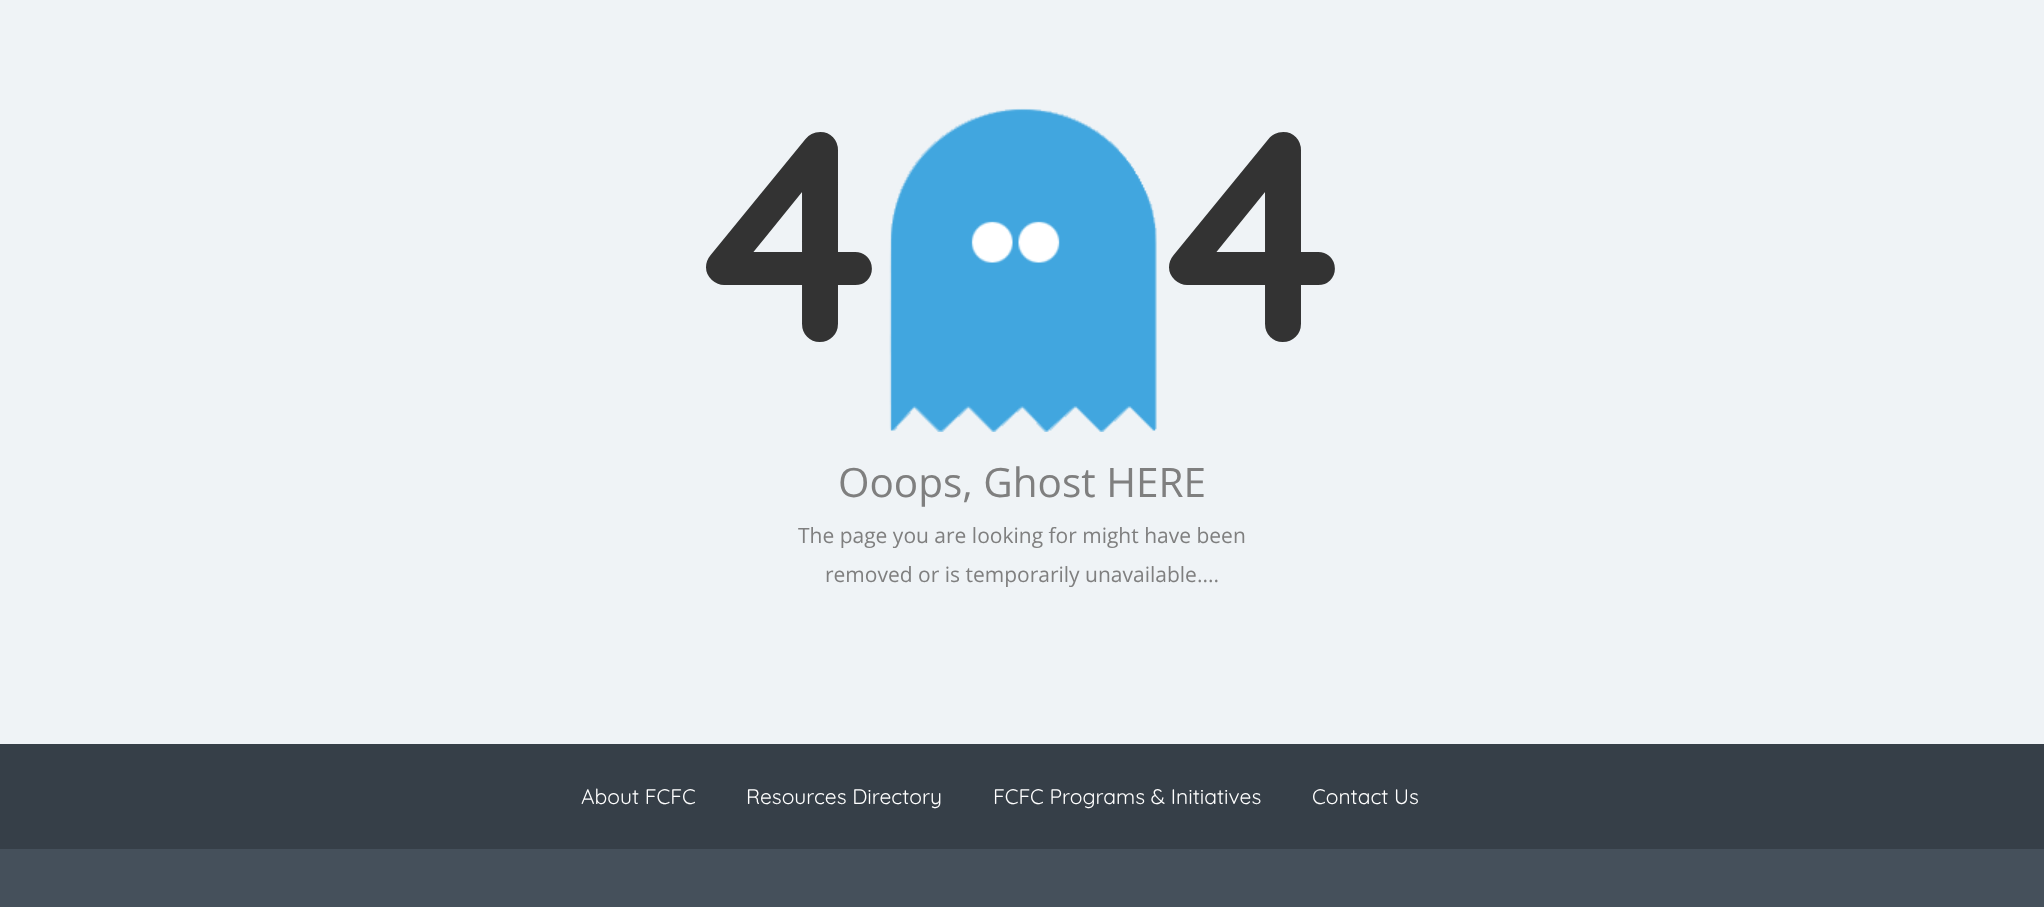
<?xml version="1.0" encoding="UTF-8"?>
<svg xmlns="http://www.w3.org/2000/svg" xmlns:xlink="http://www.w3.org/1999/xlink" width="2044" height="907">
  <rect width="100%" height="100%" fill="#eff3f6" />
  <image x="889" y="108" width="268" height="324" xlink:href="image1.png" />
  <rect y="744" width="2044" height="105" fill="#363f48" />
  <rect y="849" width="2044" height="58" fill="#45505b" />
  <text x="703" y="342" style="font-family: Quicksand; font-size: 300px; font-weight: bold; fill: #333333">4</text>
  <text x="1166" y="342" style="font-family: Quicksand; font-size: 300px; font-weight: bold; fill: #333333">4</text>
  <text x="838" y="497" style="font-family: Open Sans; font-size: 40.5px; fill: #7f7f7f">Ooops, Ghost HERE</text>
  <text x="798" y="543" style="font-family: Open Sans; font-size: 21px; fill: #7f7f7f">The page you are looking for might have been</text>
  <text x="825" y="582" style="font-family: Open Sans; font-size: 21px; fill: #7f7f7f">removed or is temporarily unavailable....</text>
  <text x="581" y="804" style="font-family: Quicksand; font-size: 21px; fill: #ffffff">About FCFC</text>
  <text x="746" y="804" style="font-family: Quicksand; font-size: 21px; fill: #ffffff">Resources Directory</text>
  <text x="993" y="804" style="font-family: Quicksand; font-size: 21px; fill: #ffffff">FCFC Programs &amp; Initiatives</text>
  <text x="1312" y="804" style="font-family: Quicksand; font-size: 21px; fill: #ffffff">Contact Us</text>
</svg>
